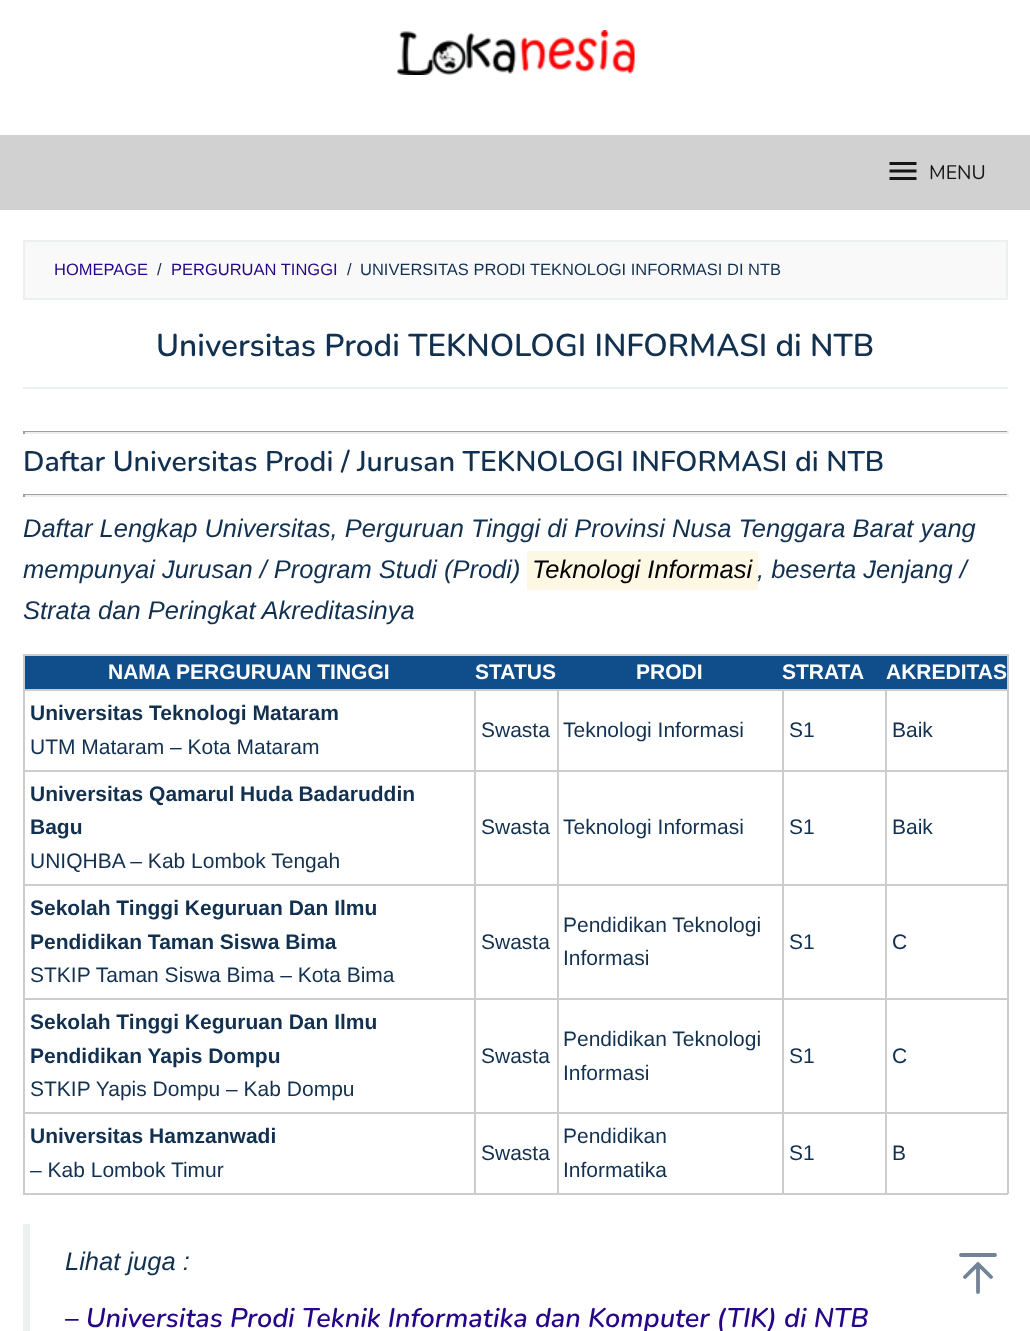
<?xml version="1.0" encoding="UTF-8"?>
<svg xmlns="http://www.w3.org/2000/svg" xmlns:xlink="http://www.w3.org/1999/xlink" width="1030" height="1331">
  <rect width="100%" height="100%" fill="#ffffff" />
  <image x="397" y="30" width="238" height="45" xlink:href="image1.png" />
  <rect y="135" width="1030" height="75" fill="#d1d1d1" />
  <image x="889" y="162" width="28" height="18" xlink:href="image2.png" />
  <rect x="24" y="241" width="983" height="58" fill="#f9f9f9" stroke="#ecf0f1" stroke-width="2" />
  <rect x="23" y="387" width="985" height="2" fill="#ecf0f1" />
  <rect x="23" y="431" width="985" height="1" fill="#9f9f9f" />
  <rect x="1007" y="431" width="2" height="3" fill="#eeeeee" />
  <rect x="23" y="432" width="985" height="2" fill="#eeeeee" />
  <rect x="23" y="431" width="2" height="3" fill="#9f9f9f" />
  <rect x="23" y="494" width="985" height="1" fill="#9f9f9f" />
  <rect x="1007" y="494" width="2" height="3" fill="#eeeeee" />
  <rect x="23" y="495" width="985" height="2" fill="#eeeeee" />
  <rect x="23" y="494" width="2" height="3" fill="#9f9f9f" />
  <rect x="527" y="551" width="231" height="39" fill="#fcf8e3" />
  <rect x="23" y="654" width="985" height="2" fill="#cccccc" />
  <rect x="1007" y="654" width="2" height="540" fill="#cccccc" />
  <rect x="23" y="1193" width="985" height="2" fill="#cccccc" />
  <rect x="23" y="654" width="2" height="540" fill="#cccccc" />
  <rect x="25" y="656" width="982" height="33" fill="#104e8b" />
  <rect x="885" y="689" width="123" height="2" fill="#cccccc" />
  <rect x="885" y="770" width="123" height="2" fill="#cccccc" />
  <rect x="885" y="884" width="123" height="2" fill="#cccccc" />
  <rect x="885" y="998" width="123" height="2" fill="#cccccc" />
  <rect x="885" y="1112" width="123" height="2" fill="#cccccc" />
  <rect x="885" y="1112" width="2" height="82" fill="#cccccc" />
  <rect x="782" y="1112" width="105" height="2" fill="#cccccc" />
  <rect x="885" y="998" width="2" height="115" fill="#cccccc" />
  <rect x="782" y="998" width="105" height="2" fill="#cccccc" />
  <rect x="885" y="884" width="2" height="115" fill="#cccccc" />
  <rect x="782" y="884" width="105" height="2" fill="#cccccc" />
  <rect x="885" y="770" width="2" height="115" fill="#cccccc" />
  <rect x="782" y="770" width="105" height="2" fill="#cccccc" />
  <rect x="885" y="689" width="2" height="82" fill="#cccccc" />
  <rect x="782" y="689" width="105" height="2" fill="#cccccc" />
  <rect x="782" y="1112" width="2" height="82" fill="#cccccc" />
  <rect x="557" y="1112" width="226" height="2" fill="#cccccc" />
  <rect x="782" y="998" width="2" height="115" fill="#cccccc" />
  <rect x="557" y="998" width="226" height="2" fill="#cccccc" />
  <rect x="782" y="884" width="2" height="115" fill="#cccccc" />
  <rect x="557" y="884" width="226" height="2" fill="#cccccc" />
  <rect x="782" y="770" width="2" height="115" fill="#cccccc" />
  <rect x="557" y="770" width="226" height="2" fill="#cccccc" />
  <rect x="782" y="689" width="2" height="82" fill="#cccccc" />
  <rect x="557" y="689" width="226" height="2" fill="#cccccc" />
  <rect x="557" y="1112" width="2" height="82" fill="#cccccc" />
  <rect x="474" y="1112" width="84" height="2" fill="#cccccc" />
  <rect x="557" y="998" width="2" height="115" fill="#cccccc" />
  <rect x="474" y="998" width="84" height="2" fill="#cccccc" />
  <rect x="557" y="884" width="2" height="115" fill="#cccccc" />
  <rect x="474" y="884" width="84" height="2" fill="#cccccc" />
  <rect x="557" y="770" width="2" height="115" fill="#cccccc" />
  <rect x="474" y="770" width="84" height="2" fill="#cccccc" />
  <rect x="557" y="689" width="2" height="82" fill="#cccccc" />
  <rect x="474" y="689" width="84" height="2" fill="#cccccc" />
  <rect x="474" y="1112" width="2" height="82" fill="#cccccc" />
  <rect x="23" y="1112" width="453" height="2" fill="#cccccc" />
  <rect x="474" y="998" width="2" height="115" fill="#cccccc" />
  <rect x="23" y="998" width="453" height="2" fill="#cccccc" />
  <rect x="474" y="884" width="2" height="115" fill="#cccccc" />
  <rect x="23" y="884" width="453" height="2" fill="#cccccc" />
  <rect x="474" y="770" width="2" height="115" fill="#cccccc" />
  <rect x="23" y="770" width="453" height="2" fill="#cccccc" />
  <rect x="474" y="689" width="2" height="82" fill="#cccccc" />
  <rect x="23" y="689" width="453" height="2" fill="#cccccc" />
  <rect x="23" y="1224" width="7" height="107" fill="#ecf0f1" />
  <path d="M 978 1292 v -28 m -13 13 l 13 -13 l 13 13 m -30 -22 h 34" fill="none" stroke="#718395" stroke-width="3.8" stroke-linecap="round" stroke-linejoin="round" />
  <text x="929" y="179" style="font-family: Nunito; font-size: 19.5px; fill: #161616">MENU</text>
  <text x="54" y="275" style="font-family: Liberation Sans; font-size: 16.5px; fill: #260589">HOMEPAGE</text>
  <text x="157" y="275" style="font-family: Liberation Sans; font-size: 16.5px; fill: #12304f">/</text>
  <text x="171" y="275" style="font-family: Liberation Sans; font-size: 16.5px; fill: #260589">PERGURUAN TINGGI</text>
  <text x="347" y="275" style="font-family: Liberation Sans; font-size: 16.5px; fill: #12304f">/</text>
  <text x="360" y="275" style="font-family: Liberation Sans; font-size: 16.5px; fill: #12304f">UNIVERSITAS PRODI TEKNOLOGI INFORMASI DI NTB</text>
  <text x="156" y="356" style="font-family: Nunito; font-size: 31.5px; font-weight: 600; fill: #12304f">Universitas Prodi TEKNOLOGI INFORMASI di NTB</text>
  <text x="23" y="471" style="font-family: Nunito; font-size: 28.5px; font-weight: 600; fill: #12304f">Daftar Universitas Prodi / Jurusan TEKNOLOGI INFORMASI di NTB</text>
  <text x="23" y="537" style="font-family: Liberation Sans; font-size: 25.5px; font-style: italic; fill: #12304f">Daftar Lengkap Universitas, Perguruan Tinggi di Provinsi Nusa Tenggara Barat yang</text>
  <text x="23" y="578" style="font-family: Liberation Sans; font-size: 25.5px; font-style: italic; fill: #12304f">mempunyai Jurusan / Program Studi (Prodi)</text>
  <text x="532" y="578" style="font-family: Liberation Sans; font-size: 25.5px; font-style: italic; fill: #000000">Teknologi Informasi</text>
  <text x="757" y="578" style="font-family: Liberation Sans; font-size: 25.5px; font-style: italic; fill: #12304f">, beserta Jenjang /</text>
  <text x="23" y="619" style="font-family: Liberation Sans; font-size: 25.5px; font-style: italic; fill: #12304f">Strata dan Peringkat Akreditasinya</text>
  <text x="108" y="679" style="font-family: Liberation Sans; font-size: 21px; font-weight: bold; fill: #ffffff">NAMA PERGURUAN TINGGI</text>
  <text x="475" y="679" style="font-family: Liberation Sans; font-size: 21px; font-weight: bold; fill: #ffffff">STATUS</text>
  <text x="636" y="679" style="font-family: Liberation Sans; font-size: 21px; font-weight: bold; fill: #ffffff">PRODI</text>
  <text x="782" y="679" style="font-family: Liberation Sans; font-size: 21px; font-weight: bold; fill: #ffffff">STRATA</text>
  <text x="886" y="679" style="font-family: Liberation Sans; font-size: 21px; font-weight: bold; fill: #ffffff">AKREDITAS</text>
  <text x="30" y="720" style="font-family: Liberation Sans; font-size: 21px; font-weight: bold; fill: #12304f">Universitas Teknologi Mataram</text>
  <text x="30" y="754" style="font-family: Liberation Sans; font-size: 21px; fill: #12304f">UTM Mataram – Kota Mataram</text>
  <text x="481" y="737" style="font-family: Liberation Sans; font-size: 21px; fill: #12304f">Swasta</text>
  <text x="563" y="737" style="font-family: Liberation Sans; font-size: 21px; fill: #12304f">Teknologi Informasi</text>
  <text x="789" y="737" style="font-family: Liberation Sans; font-size: 21px; fill: #12304f">S1</text>
  <text x="892" y="737" style="font-family: Liberation Sans; font-size: 21px; fill: #12304f">Baik</text>
  <text x="30" y="801" style="font-family: Liberation Sans; font-size: 21px; font-weight: bold; fill: #12304f">Universitas Qamarul Huda Badaruddin</text>
  <text x="30" y="834" style="font-family: Liberation Sans; font-size: 21px; font-weight: bold; fill: #12304f">Bagu</text>
  <text x="30" y="868" style="font-family: Liberation Sans; font-size: 21px; fill: #12304f">UNIQHBA – Kab Lombok Tengah</text>
  <text x="481" y="834" style="font-family: Liberation Sans; font-size: 21px; fill: #12304f">Swasta</text>
  <text x="563" y="834" style="font-family: Liberation Sans; font-size: 21px; fill: #12304f">Teknologi Informasi</text>
  <text x="789" y="834" style="font-family: Liberation Sans; font-size: 21px; fill: #12304f">S1</text>
  <text x="892" y="834" style="font-family: Liberation Sans; font-size: 21px; fill: #12304f">Baik</text>
  <text x="30" y="915" style="font-family: Liberation Sans; font-size: 21px; font-weight: bold; fill: #12304f">Sekolah Tinggi Keguruan Dan Ilmu</text>
  <text x="30" y="949" style="font-family: Liberation Sans; font-size: 21px; font-weight: bold; fill: #12304f">Pendidikan Taman Siswa Bima</text>
  <text x="30" y="982" style="font-family: Liberation Sans; font-size: 21px; fill: #12304f">STKIP Taman Siswa Bima – Kota Bima</text>
  <text x="481" y="949" style="font-family: Liberation Sans; font-size: 21px; fill: #12304f">Swasta</text>
  <text x="563" y="932" style="font-family: Liberation Sans; font-size: 21px; fill: #12304f">Pendidikan Teknologi</text>
  <text x="563" y="965" style="font-family: Liberation Sans; font-size: 21px; fill: #12304f">Informasi</text>
  <text x="789" y="949" style="font-family: Liberation Sans; font-size: 21px; fill: #12304f">S1</text>
  <text x="892" y="949" style="font-family: Liberation Sans; font-size: 21px; fill: #12304f">C</text>
  <text x="30" y="1029" style="font-family: Liberation Sans; font-size: 21px; font-weight: bold; fill: #12304f">Sekolah Tinggi Keguruan Dan Ilmu</text>
  <text x="30" y="1063" style="font-family: Liberation Sans; font-size: 21px; font-weight: bold; fill: #12304f">Pendidikan Yapis Dompu</text>
  <text x="30" y="1096" style="font-family: Liberation Sans; font-size: 21px; fill: #12304f">STKIP Yapis Dompu – Kab Dompu</text>
  <text x="481" y="1063" style="font-family: Liberation Sans; font-size: 21px; fill: #12304f">Swasta</text>
  <text x="563" y="1046" style="font-family: Liberation Sans; font-size: 21px; fill: #12304f">Pendidikan Teknologi</text>
  <text x="563" y="1080" style="font-family: Liberation Sans; font-size: 21px; fill: #12304f">Informasi</text>
  <text x="789" y="1063" style="font-family: Liberation Sans; font-size: 21px; fill: #12304f">S1</text>
  <text x="892" y="1063" style="font-family: Liberation Sans; font-size: 21px; fill: #12304f">C</text>
  <text x="30" y="1143" style="font-family: Liberation Sans; font-size: 21px; font-weight: bold; fill: #12304f">Universitas Hamzanwadi</text>
  <text x="30" y="1177" style="font-family: Liberation Sans; font-size: 21px; fill: #12304f">– Kab Lombok Timur</text>
  <text x="481" y="1160" style="font-family: Liberation Sans; font-size: 21px; fill: #12304f">Swasta</text>
  <text x="563" y="1143" style="font-family: Liberation Sans; font-size: 21px; fill: #12304f">Pendidikan</text>
  <text x="563" y="1177" style="font-family: Liberation Sans; font-size: 21px; fill: #12304f">Informatika</text>
  <text x="789" y="1160" style="font-family: Liberation Sans; font-size: 21px; fill: #12304f">S1</text>
  <text x="892" y="1160" style="font-family: Liberation Sans; font-size: 21px; fill: #12304f">B</text>
  <text x="65" y="1270" style="font-family: Liberation Sans; font-size: 25.5px; font-style: italic; fill: #12304f">Lihat juga :</text>
  <text x="65" y="1327" style="font-family: Nunito; font-size: 27px; font-weight: 600; font-style: italic; fill: #260589">– Universitas Prodi Teknik Informatika dan Komputer (TIK) di NTB</text>
</svg>
